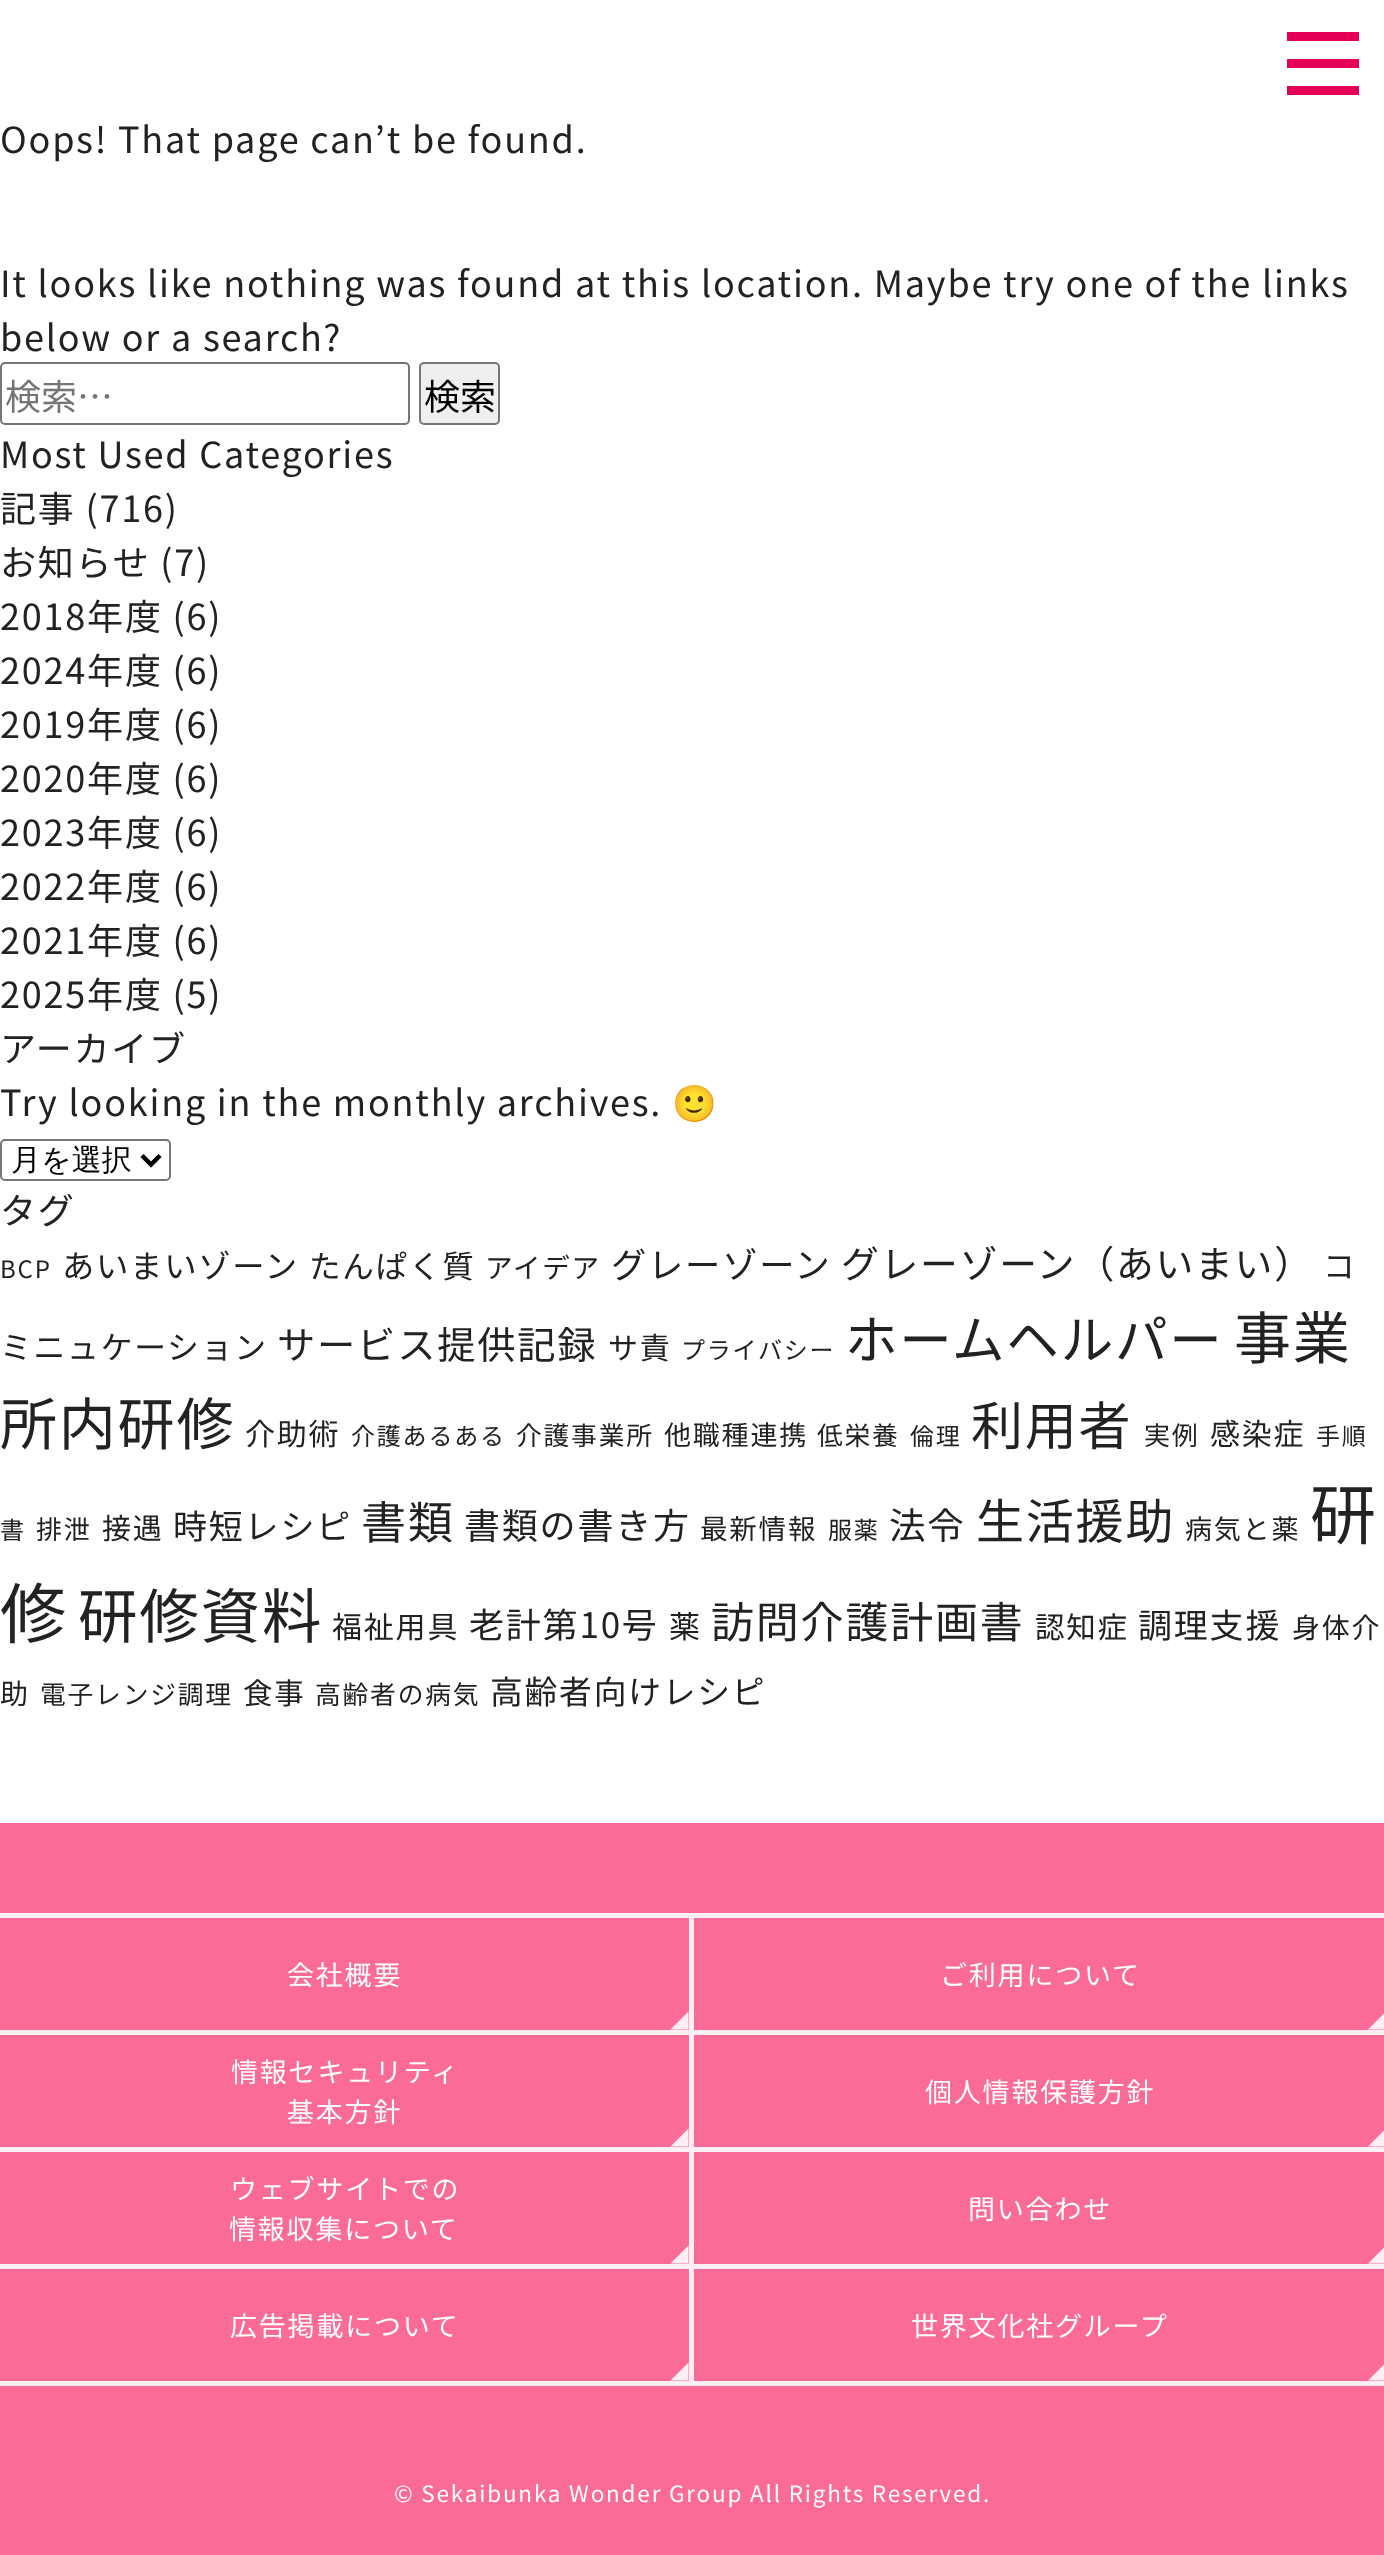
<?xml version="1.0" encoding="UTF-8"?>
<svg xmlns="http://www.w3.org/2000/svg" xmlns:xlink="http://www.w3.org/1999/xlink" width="1384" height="2555">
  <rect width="100%" height="100%" fill="#ffffff" />
  <rect x="1287" y="32" width="72" height="9" fill="#e50057" />
  <rect x="1287" y="59" width="72" height="9" fill="#e50057" />
  <rect x="1287" y="86" width="72" height="9" fill="#e50057" />
  <rect x="1" y="363" width="408" height="61" rx="4" fill="none" stroke="#767676" stroke-width="2" />
  <rect x="420" y="363" width="79" height="61" rx="4" fill="#efefef" stroke="#767676" stroke-width="2" />
  <rect x="1" y="1140" width="169" height="40" rx="4" fill="none" stroke="#767676" stroke-width="2" />
  <path d="M 142 1155.5 l 9 9 l 9 -9" fill="none" stroke="#000000" stroke-width="4.5" />
  <rect y="1823" width="1384" height="732" fill="#fa6b97" />
  <rect y="1913" width="1384" height="5" fill="#ffeef4" />
  <rect x="689" y="1917" width="5" height="117" fill="#ffeef4" />
  <rect y="2030" width="1384" height="5" fill="#ffeef4" />
  <path d="M 688.5 2029.5 h -18 l 18 -18 z" fill="#ffeef4" />
  <path d="M 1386 2029.5 h -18 l 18 -18 z" fill="#ffeef4" />
  <rect x="689" y="2034" width="5" height="117" fill="#ffeef4" />
  <rect y="2147" width="1384" height="5" fill="#ffeef4" />
  <path d="M 688.5 2146.5 h -18 l 18 -18 z" fill="#ffeef4" />
  <path d="M 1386 2146.5 h -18 l 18 -18 z" fill="#ffeef4" />
  <rect x="689" y="2151" width="5" height="117" fill="#ffeef4" />
  <rect y="2264" width="1384" height="5" fill="#ffeef4" />
  <path d="M 688.5 2263.5 h -18 l 18 -18 z" fill="#ffeef4" />
  <path d="M 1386 2263.5 h -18 l 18 -18 z" fill="#ffeef4" />
  <rect x="689" y="2268" width="5" height="117" fill="#ffeef4" />
  <rect y="2381" width="1384" height="5" fill="#ffeef4" />
  <path d="M 688.5 2380.5 h -18 l 18 -18 z" fill="#ffeef4" />
  <path d="M 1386 2380.5 h -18 l 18 -18 z" fill="#ffeef4" />
  <text x="0" y="153" style="font-family: Noto Sans JP; font-size: 36px; letter-spacing: 1.8px; fill: #222222">Oops! That page can’t be found.</text>
  <text x="0" y="297" style="font-family: Noto Sans JP; font-size: 36px; letter-spacing: 1.8px; fill: #222222">It looks like nothing was found at this location. Maybe try one of the links</text>
  <text x="0" y="351" style="font-family: Noto Sans JP; font-size: 36px; letter-spacing: 1.8px; fill: #222222">below or a search?</text>
  <text x="5" y="410" style="font-family: Noto Sans JP; font-size: 36px; fill: #757575">検索…</text>
  <text x="424" y="410" style="font-family: Noto Sans JP; font-size: 36px; fill: #000000">検索</text>
  <text x="0" y="468" style="font-family: Noto Sans JP; font-size: 36px; letter-spacing: 1.8px; fill: #222222">Most Used Categories</text>
  <text x="0" y="522" style="font-family: Noto Sans JP; font-size: 36px; letter-spacing: 1.8px; fill: #222222">記事 (716)</text>
  <text x="0" y="576" style="font-family: Noto Sans JP; font-size: 36px; letter-spacing: 1.8px; fill: #222222">お知らせ (7)</text>
  <text x="0" y="630" style="font-family: Noto Sans JP; font-size: 36px; letter-spacing: 1.8px; fill: #222222">2018年度 (6)</text>
  <text x="0" y="684" style="font-family: Noto Sans JP; font-size: 36px; letter-spacing: 1.8px; fill: #222222">2024年度 (6)</text>
  <text x="0" y="738" style="font-family: Noto Sans JP; font-size: 36px; letter-spacing: 1.8px; fill: #222222">2019年度 (6)</text>
  <text x="0" y="792" style="font-family: Noto Sans JP; font-size: 36px; letter-spacing: 1.8px; fill: #222222">2020年度 (6)</text>
  <text x="0" y="846" style="font-family: Noto Sans JP; font-size: 36px; letter-spacing: 1.8px; fill: #222222">2023年度 (6)</text>
  <text x="0" y="900" style="font-family: Noto Sans JP; font-size: 36px; letter-spacing: 1.8px; fill: #222222">2022年度 (6)</text>
  <text x="0" y="954" style="font-family: Noto Sans JP; font-size: 36px; letter-spacing: 1.8px; fill: #222222">2021年度 (6)</text>
  <text x="0" y="1008" style="font-family: Noto Sans JP; font-size: 36px; letter-spacing: 1.8px; fill: #222222">2025年度 (5)</text>
  <text x="0" y="1062" style="font-family: Noto Sans JP; font-size: 36px; letter-spacing: 1.8px; fill: #222222">アーカイブ</text>
  <text x="0" y="1116" style="font-family: Noto Sans JP; font-size: 36px; letter-spacing: 1.8px; fill: #222222">Try looking in the monthly archives.</text>
  <text x="672" y="1116" style="font-family: Noto Color Emoji; font-size: 36px; letter-spacing: 1.8px; fill: #222222">🙂</text>
  <text x="11" y="1170" style="font-family: WenQuanYi Zen Hei; font-size: 30px; font-weight: 500; fill: #000000">月を選択</text>
  <text x="0" y="1224" style="font-family: Noto Sans JP; font-size: 36px; letter-spacing: 1.8px; fill: #222222">タグ</text>
  <text x="0" y="1278" style="font-family: Noto Sans JP; font-size: 24px; letter-spacing: 1.8px; fill: #222222">BCP</text>
  <text x="62" y="1278" style="font-family: Noto Sans JP; font-size: 32.25px; letter-spacing: 1.8px; fill: #222222">あいまいゾーン</text>
  <text x="309" y="1278" style="font-family: Noto Sans JP; font-size: 31.5px; letter-spacing: 1.8px; fill: #222222">たんぱく質</text>
  <text x="485" y="1278" style="font-family: Noto Sans JP; font-size: 27.5px; letter-spacing: 1.8px; fill: #222222">アイデア</text>
  <text x="611" y="1278" style="font-family: Noto Sans JP; font-size: 35.25px; letter-spacing: 1.8px; fill: #222222">グレーゾーン</text>
  <text x="841" y="1278" style="font-family: Noto Sans JP; font-size: 37.75px; letter-spacing: 1.8px; fill: #222222">グレーゾーン（あいまい）</text>
  <text x="1323" y="1278" style="font-family: Noto Sans JP; font-size: 31.75px; letter-spacing: 1.8px; fill: #222222">コ</text>
  <text x="0" y="1359" style="font-family: Noto Sans JP; font-size: 31.75px; letter-spacing: 1.8px; fill: #222222">ミニュケーション</text>
  <text x="277" y="1359" style="font-family: Noto Sans JP; font-size: 38.25px; letter-spacing: 1.8px; fill: #222222">サービス提供記録</text>
  <text x="608" y="1359" style="font-family: Noto Sans JP; font-size: 30px; letter-spacing: 1.8px; fill: #222222">サ責</text>
  <text x="681" y="1359" style="font-family: Noto Sans JP; font-size: 24px; letter-spacing: 1.8px; fill: #222222">プライバシー</text>
  <text x="845" y="1359" style="font-family: Noto Sans JP; font-size: 52.5px; letter-spacing: 1.8px; fill: #222222">ホームヘルパー</text>
  <text x="1234" y="1359" style="font-family: Noto Sans JP; font-size: 57px; letter-spacing: 1.8px; fill: #222222">事業</text>
  <text x="0" y="1445" style="font-family: Noto Sans JP; font-size: 57px; letter-spacing: 1.8px; fill: #222222">所内研修</text>
  <text x="245" y="1445" style="font-family: Noto Sans JP; font-size: 30px; letter-spacing: 1.8px; fill: #222222">介助術</text>
  <text x="351" y="1445" style="font-family: Noto Sans JP; font-size: 24px; letter-spacing: 1.8px; fill: #222222">介護あるある</text>
  <text x="516" y="1445" style="font-family: Noto Sans JP; font-size: 25.75px; letter-spacing: 1.8px; fill: #222222">介護事業所</text>
  <text x="664" y="1445" style="font-family: Noto Sans JP; font-size: 27px; letter-spacing: 1.8px; fill: #222222">他職種連携</text>
  <text x="817" y="1445" style="font-family: Noto Sans JP; font-size: 25.75px; letter-spacing: 1.8px; fill: #222222">低栄養</text>
  <text x="910" y="1445" style="font-family: Noto Sans JP; font-size: 24px; letter-spacing: 1.8px; fill: #222222">倫理</text>
  <text x="971" y="1445" style="font-family: Noto Sans JP; font-size: 52px; letter-spacing: 1.8px; fill: #222222">利用者</text>
  <text x="1144" y="1445" style="font-family: Noto Sans JP; font-size: 26px; letter-spacing: 1.8px; fill: #222222">実例</text>
  <text x="1210" y="1445" style="font-family: Noto Sans JP; font-size: 30px; letter-spacing: 1.8px; fill: #222222">感染症</text>
  <text x="1316" y="1445" style="font-family: Noto Sans JP; font-size: 24px; letter-spacing: 1.8px; fill: #222222">手順</text>
  <text x="0" y="1539" style="font-family: Noto Sans JP; font-size: 24px; letter-spacing: 1.8px; fill: #222222">書</text>
  <text x="36" y="1539" style="font-family: Noto Sans JP; font-size: 26px; letter-spacing: 1.8px; fill: #222222">排泄</text>
  <text x="102" y="1539" style="font-family: Noto Sans JP; font-size: 29px; letter-spacing: 1.8px; fill: #222222">接遇</text>
  <text x="173" y="1539" style="font-family: Noto Sans JP; font-size: 34px; letter-spacing: 1.8px; fill: #222222">時短レシピ</text>
  <text x="361" y="1539" style="font-family: Noto Sans JP; font-size: 45px; letter-spacing: 1.8px; fill: #222222">書類</text>
  <text x="464" y="1539" style="font-family: Noto Sans JP; font-size: 36px; letter-spacing: 1.8px; fill: #222222">書類の書き方</text>
  <text x="700" y="1539" style="font-family: Noto Sans JP; font-size: 27.5px; letter-spacing: 1.8px; fill: #222222">最新情報</text>
  <text x="828" y="1539" style="font-family: Noto Sans JP; font-size: 24px; letter-spacing: 1.8px; fill: #222222">服薬</text>
  <text x="889" y="1539" style="font-family: Noto Sans JP; font-size: 36.5px; letter-spacing: 1.8px; fill: #222222">法令</text>
  <text x="976" y="1539" style="font-family: Noto Sans JP; font-size: 48px; letter-spacing: 1.8px; fill: #222222">生活援助</text>
  <text x="1185" y="1539" style="font-family: Noto Sans JP; font-size: 27px; letter-spacing: 1.8px; fill: #222222">病気と薬</text>
  <text x="1310" y="1539" style="font-family: Noto Sans JP; font-size: 66px; letter-spacing: 1.8px; fill: #222222">研</text>
  <text x="0" y="1638" style="font-family: Noto Sans JP; font-size: 66px; letter-spacing: 1.8px; fill: #222222">修</text>
  <text x="78" y="1638" style="font-family: Noto Sans JP; font-size: 59.5px; letter-spacing: 1.8px; fill: #222222">研修資料</text>
  <text x="332" y="1638" style="font-family: Noto Sans JP; font-size: 30px; letter-spacing: 1.8px; fill: #222222">福祉用具</text>
  <text x="469" y="1638" style="font-family: Noto Sans JP; font-size: 35px; letter-spacing: 1.8px; fill: #222222">老計第10号</text>
  <text x="669" y="1638" style="font-family: Noto Sans JP; font-size: 31px; letter-spacing: 1.8px; fill: #222222">薬</text>
  <text x="711" y="1638" style="font-family: Noto Sans JP; font-size: 43px; letter-spacing: 1.8px; fill: #222222">訪問介護計画書</text>
  <text x="1035" y="1638" style="font-family: Noto Sans JP; font-size: 29.5px; letter-spacing: 1.8px; fill: #222222">認知症</text>
  <text x="1138" y="1638" style="font-family: Noto Sans JP; font-size: 34px; letter-spacing: 1.8px; fill: #222222">調理支援</text>
  <text x="1292" y="1638" style="font-family: Noto Sans JP; font-size: 28px; letter-spacing: 1.8px; fill: #222222">身体介</text>
  <text x="0" y="1704" style="font-family: Noto Sans JP; font-size: 28px; letter-spacing: 1.8px; fill: #222222">助</text>
  <text x="40" y="1704" style="font-family: Noto Sans JP; font-size: 25.75px; letter-spacing: 1.8px; fill: #222222">電子レンジ調理</text>
  <text x="243" y="1704" style="font-family: Noto Sans JP; font-size: 29.5px; letter-spacing: 1.8px; fill: #222222">食事</text>
  <text x="315" y="1704" style="font-family: Noto Sans JP; font-size: 25.75px; letter-spacing: 1.8px; fill: #222222">高齢者の病気</text>
  <text x="490" y="1704" style="font-family: Noto Sans JP; font-size: 32.75px; letter-spacing: 1.8px; fill: #222222">高齢者向けレシピ</text>
  <text x="287" y="1985" style="font-family: Noto Sans JP; font-size: 27px; letter-spacing: 1.8px; fill: #ffffff">会社概要</text>
  <text x="940" y="1985" style="font-family: Noto Sans JP; font-size: 27px; letter-spacing: 1.8px; fill: #ffffff">ご利用について</text>
  <text x="231" y="2082" style="font-family: Noto Sans JP; font-size: 27px; letter-spacing: 1.8px; fill: #ffffff">情報セキュリティ</text>
  <text x="287" y="2122" style="font-family: Noto Sans JP; font-size: 27px; letter-spacing: 1.8px; fill: #ffffff">基本方針</text>
  <text x="925" y="2102" style="font-family: Noto Sans JP; font-size: 27px; letter-spacing: 1.8px; fill: #ffffff">個人情報保護方針</text>
  <text x="230" y="2199" style="font-family: Noto Sans JP; font-size: 27px; letter-spacing: 1.8px; fill: #ffffff">ウェブサイトでの</text>
  <text x="229" y="2239" style="font-family: Noto Sans JP; font-size: 27px; letter-spacing: 1.8px; fill: #ffffff">情報収集について</text>
  <text x="968" y="2219" style="font-family: Noto Sans JP; font-size: 27px; letter-spacing: 1.8px; fill: #ffffff">問い合わせ</text>
  <text x="230" y="2336" style="font-family: Noto Sans JP; font-size: 27px; letter-spacing: 1.8px; fill: #ffffff">広告掲載について</text>
  <text x="911" y="2336" style="font-family: Noto Sans JP; font-size: 27px; letter-spacing: 1.8px; fill: #ffffff">世界文化社グループ</text>
  <text x="394" y="2502" style="font-family: Noto Sans JP; font-size: 22.5px; letter-spacing: 1.8px; fill: #ffffff">© Sekaibunka Wonder Group All Rights Reserved.</text>
</svg>
